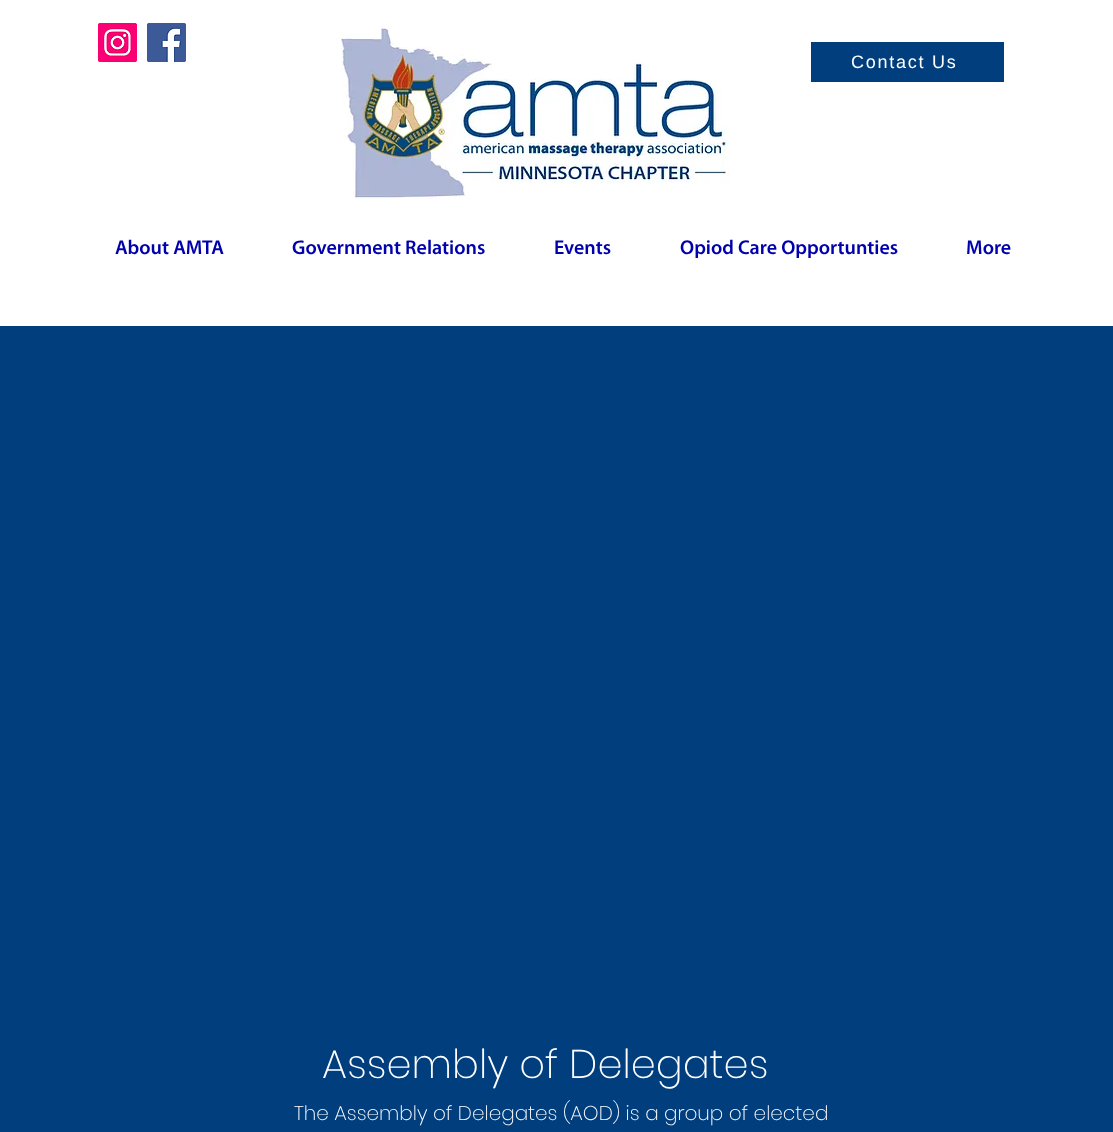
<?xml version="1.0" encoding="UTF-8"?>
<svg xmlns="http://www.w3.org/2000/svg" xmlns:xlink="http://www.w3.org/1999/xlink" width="1113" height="1132">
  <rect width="100%" height="100%" fill="#003e7e" />
  <rect width="1113" height="326" fill="#ffffff" />
  <image x="98" y="23" width="39" height="39" xlink:href="image1.png" />
  <image x="147" y="23" width="39" height="39" xlink:href="image2.png" />
  <image x="341" y="27" width="389" height="172" xlink:href="image3.png" />
  <rect x="811" y="42" width="193" height="40" fill="#003e7e" />
  <text x="851" y="68" style="font-family: Liberation Sans; font-size: 18px; letter-spacing: 1.75px; fill: #ffffff">Contact Us</text>
  <text x="115" y="254" style="font-family: Myriad; font-size: 20px; font-weight: 600; fill: #0000ad">About AMTA</text>
  <text x="292" y="254" style="font-family: Myriad; font-size: 20px; font-weight: 600; fill: #0000ad">Government Relations</text>
  <text x="554" y="254" style="font-family: Myriad; font-size: 20px; font-weight: 600; fill: #0000ad">Events</text>
  <text x="680" y="254" style="font-family: Myriad; font-size: 20px; font-weight: 600; fill: #0000ad">Opiod Care Opportunties</text>
  <text x="966" y="254" style="font-family: Myriad; font-size: 20px; font-weight: 600; fill: #0000ad">More</text>
  <text x="322" y="1078" style="font-family: Poppins; font-size: 40px; font-weight: 200; fill: #ffffff">Assembly of Delegates</text>
  <text x="294" y="1120" style="font-family: Poppins; font-size: 20px; font-weight: 200; fill: #ffffff">The Assembly of Delegates (AOD) is a group of elected</text>
</svg>
